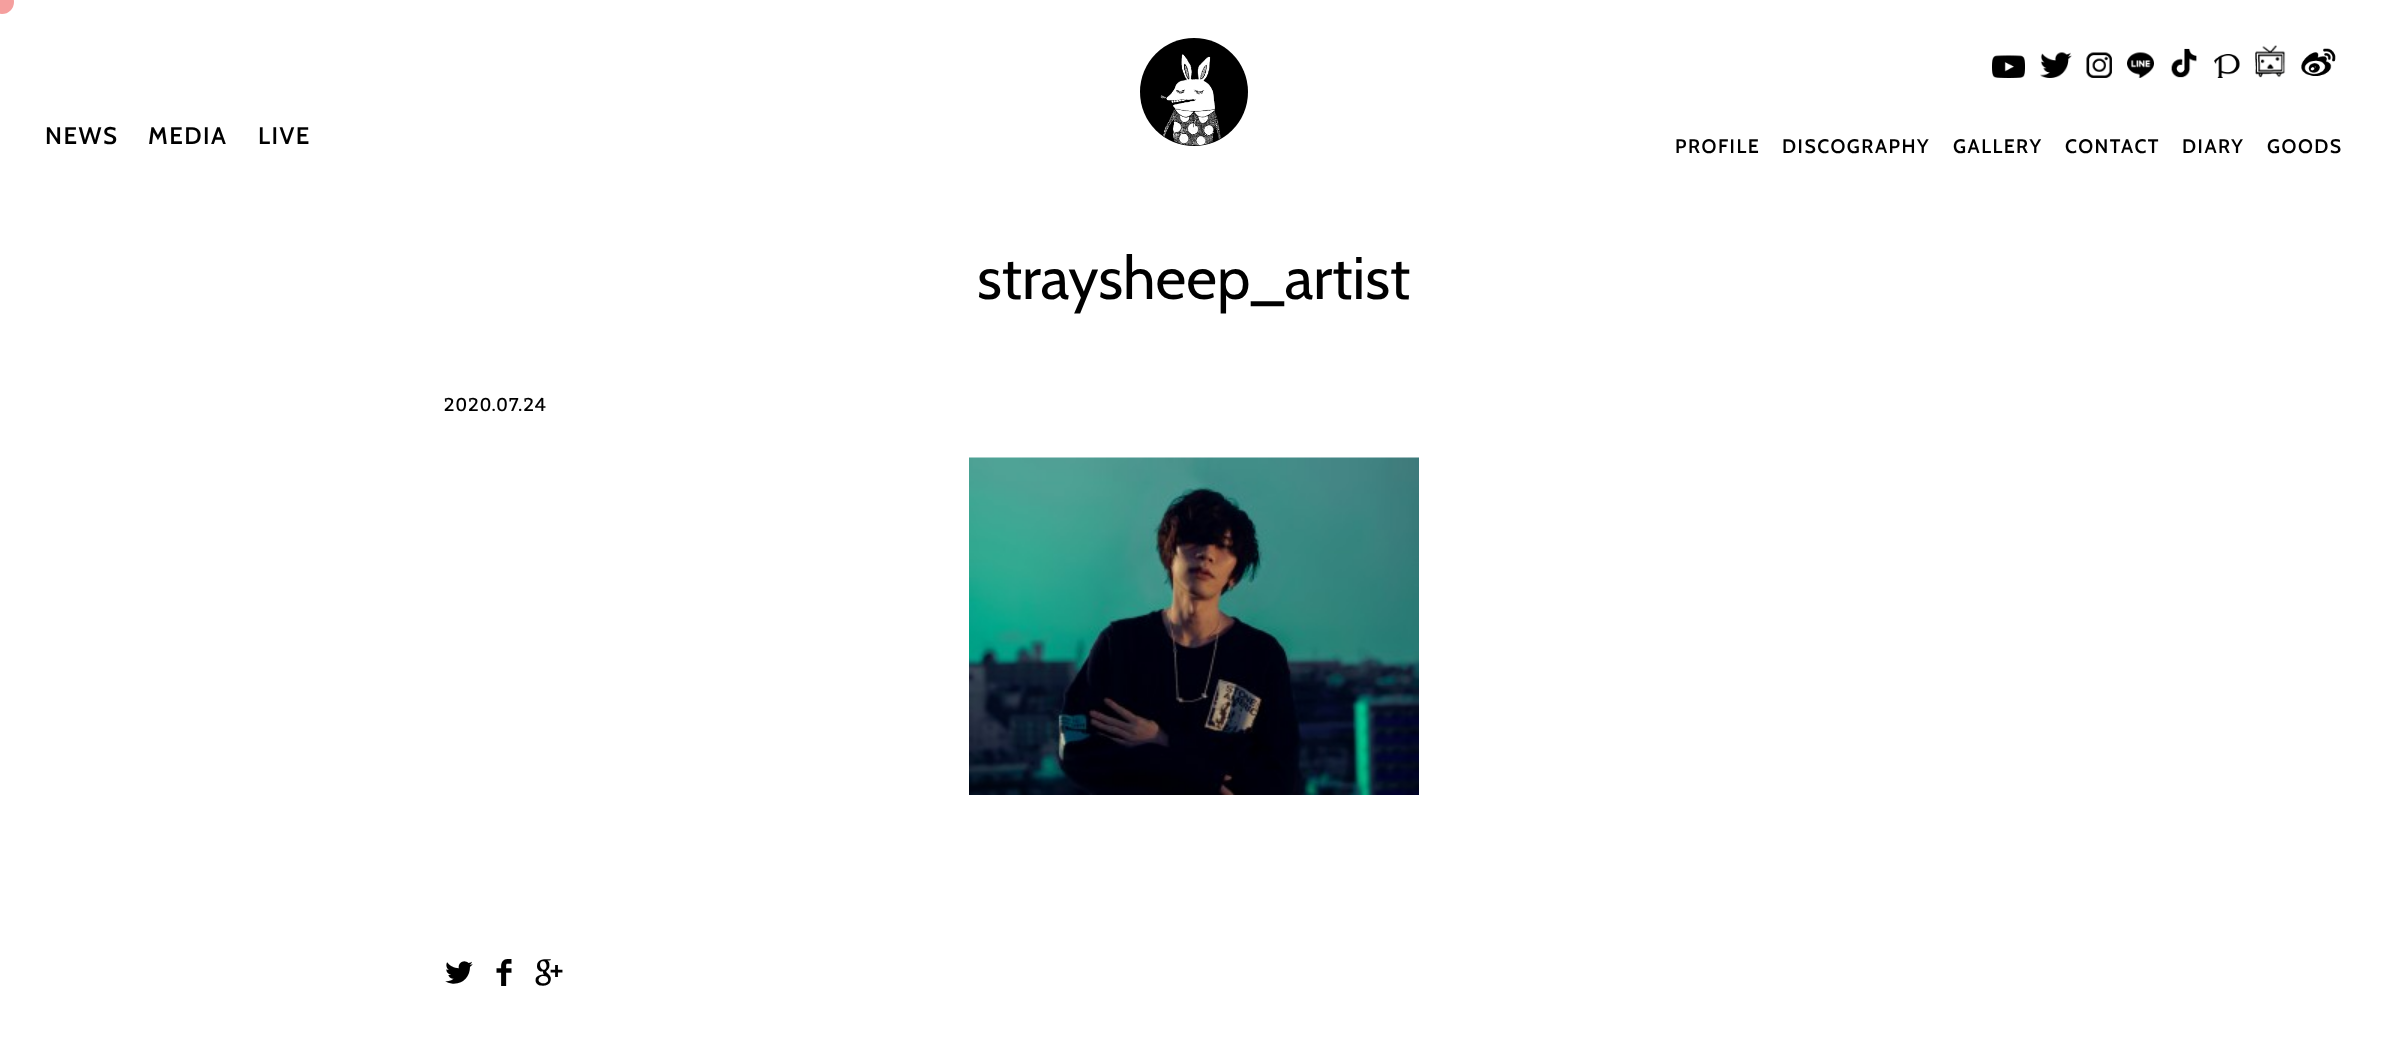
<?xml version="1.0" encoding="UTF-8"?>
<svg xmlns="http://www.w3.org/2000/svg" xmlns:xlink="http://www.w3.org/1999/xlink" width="2387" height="1045">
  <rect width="100%" height="100%" fill="#ffffff" />
  <circle cx="2" cy="2" r="12" fill="#f59f9e" />
  <circle cx="1194" cy="92" r="54" fill="#000000" />
  <image x="1992" y="55" width="33" height="23" xlink:href="image1.png" />
  <image x="2040" y="52" width="32" height="26" xlink:href="image2.png" />
  <image x="2086" y="52" width="26" height="26" xlink:href="image3.png" />
  <image x="2127" y="52" width="27" height="26" xlink:href="image4.png" />
  <image x="2171" y="48" width="26" height="30" xlink:href="image5.png" />
  <image x="2214" y="54" width="26" height="24" xlink:href="image6.png" />
  <image x="2255" y="45" width="31" height="33" xlink:href="image7.png" />
  <image x="2301" y="48" width="35" height="28" xlink:href="image8.png" />
  <image x="1160" y="54" width="61" height="92" xlink:href="image9.png" />
  <image x="969" y="457" width="450" height="338" xlink:href="image10.png" />
  <text x="45" y="144" style="font-family: Cabin; font-size: 24px; font-weight: 600; letter-spacing: 1.5px; fill: #000000">NEWS</text>
  <text x="148" y="144" style="font-family: Cabin; font-size: 24px; font-weight: 600; letter-spacing: 1.5px; fill: #000000">MEDIA</text>
  <text x="258" y="144" style="font-family: Cabin; font-size: 24px; font-weight: 600; letter-spacing: 1.5px; fill: #000000">LIVE</text>
  <text x="1675" y="153" style="font-family: Cabin; font-size: 19.5px; font-weight: 600; letter-spacing: 1.5px; fill: #000000">PROFILE</text>
  <text x="1782" y="153" style="font-family: Cabin; font-size: 19.5px; font-weight: 600; letter-spacing: 1.5px; fill: #000000">DISCOGRAPHY</text>
  <text x="1953" y="153" style="font-family: Cabin; font-size: 19.5px; font-weight: 600; letter-spacing: 1.5px; fill: #000000">GALLERY</text>
  <text x="2065" y="153" style="font-family: Cabin; font-size: 19.5px; font-weight: 600; letter-spacing: 1.5px; fill: #000000">CONTACT</text>
  <text x="2182" y="153" style="font-family: Cabin; font-size: 19.5px; font-weight: 600; letter-spacing: 1.5px; fill: #000000">DIARY</text>
  <text x="2267" y="153" style="font-family: Cabin; font-size: 19.5px; font-weight: 600; letter-spacing: 1.5px; fill: #000000">GOODS</text>
  <text x="977" y="299" style="font-family: Cabin; font-size: 60px; fill: #000000">straysheep_artist</text>
  <text x="444" y="411" style="font-family: Bitter; font-size: 18px; font-weight: bold; letter-spacing: 1.5px; fill: #000000">2020.07.24</text>
  <text x="444" y="986" style="font-family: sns; font-size: 30px; fill: #000000">1 2 3</text>
</svg>
